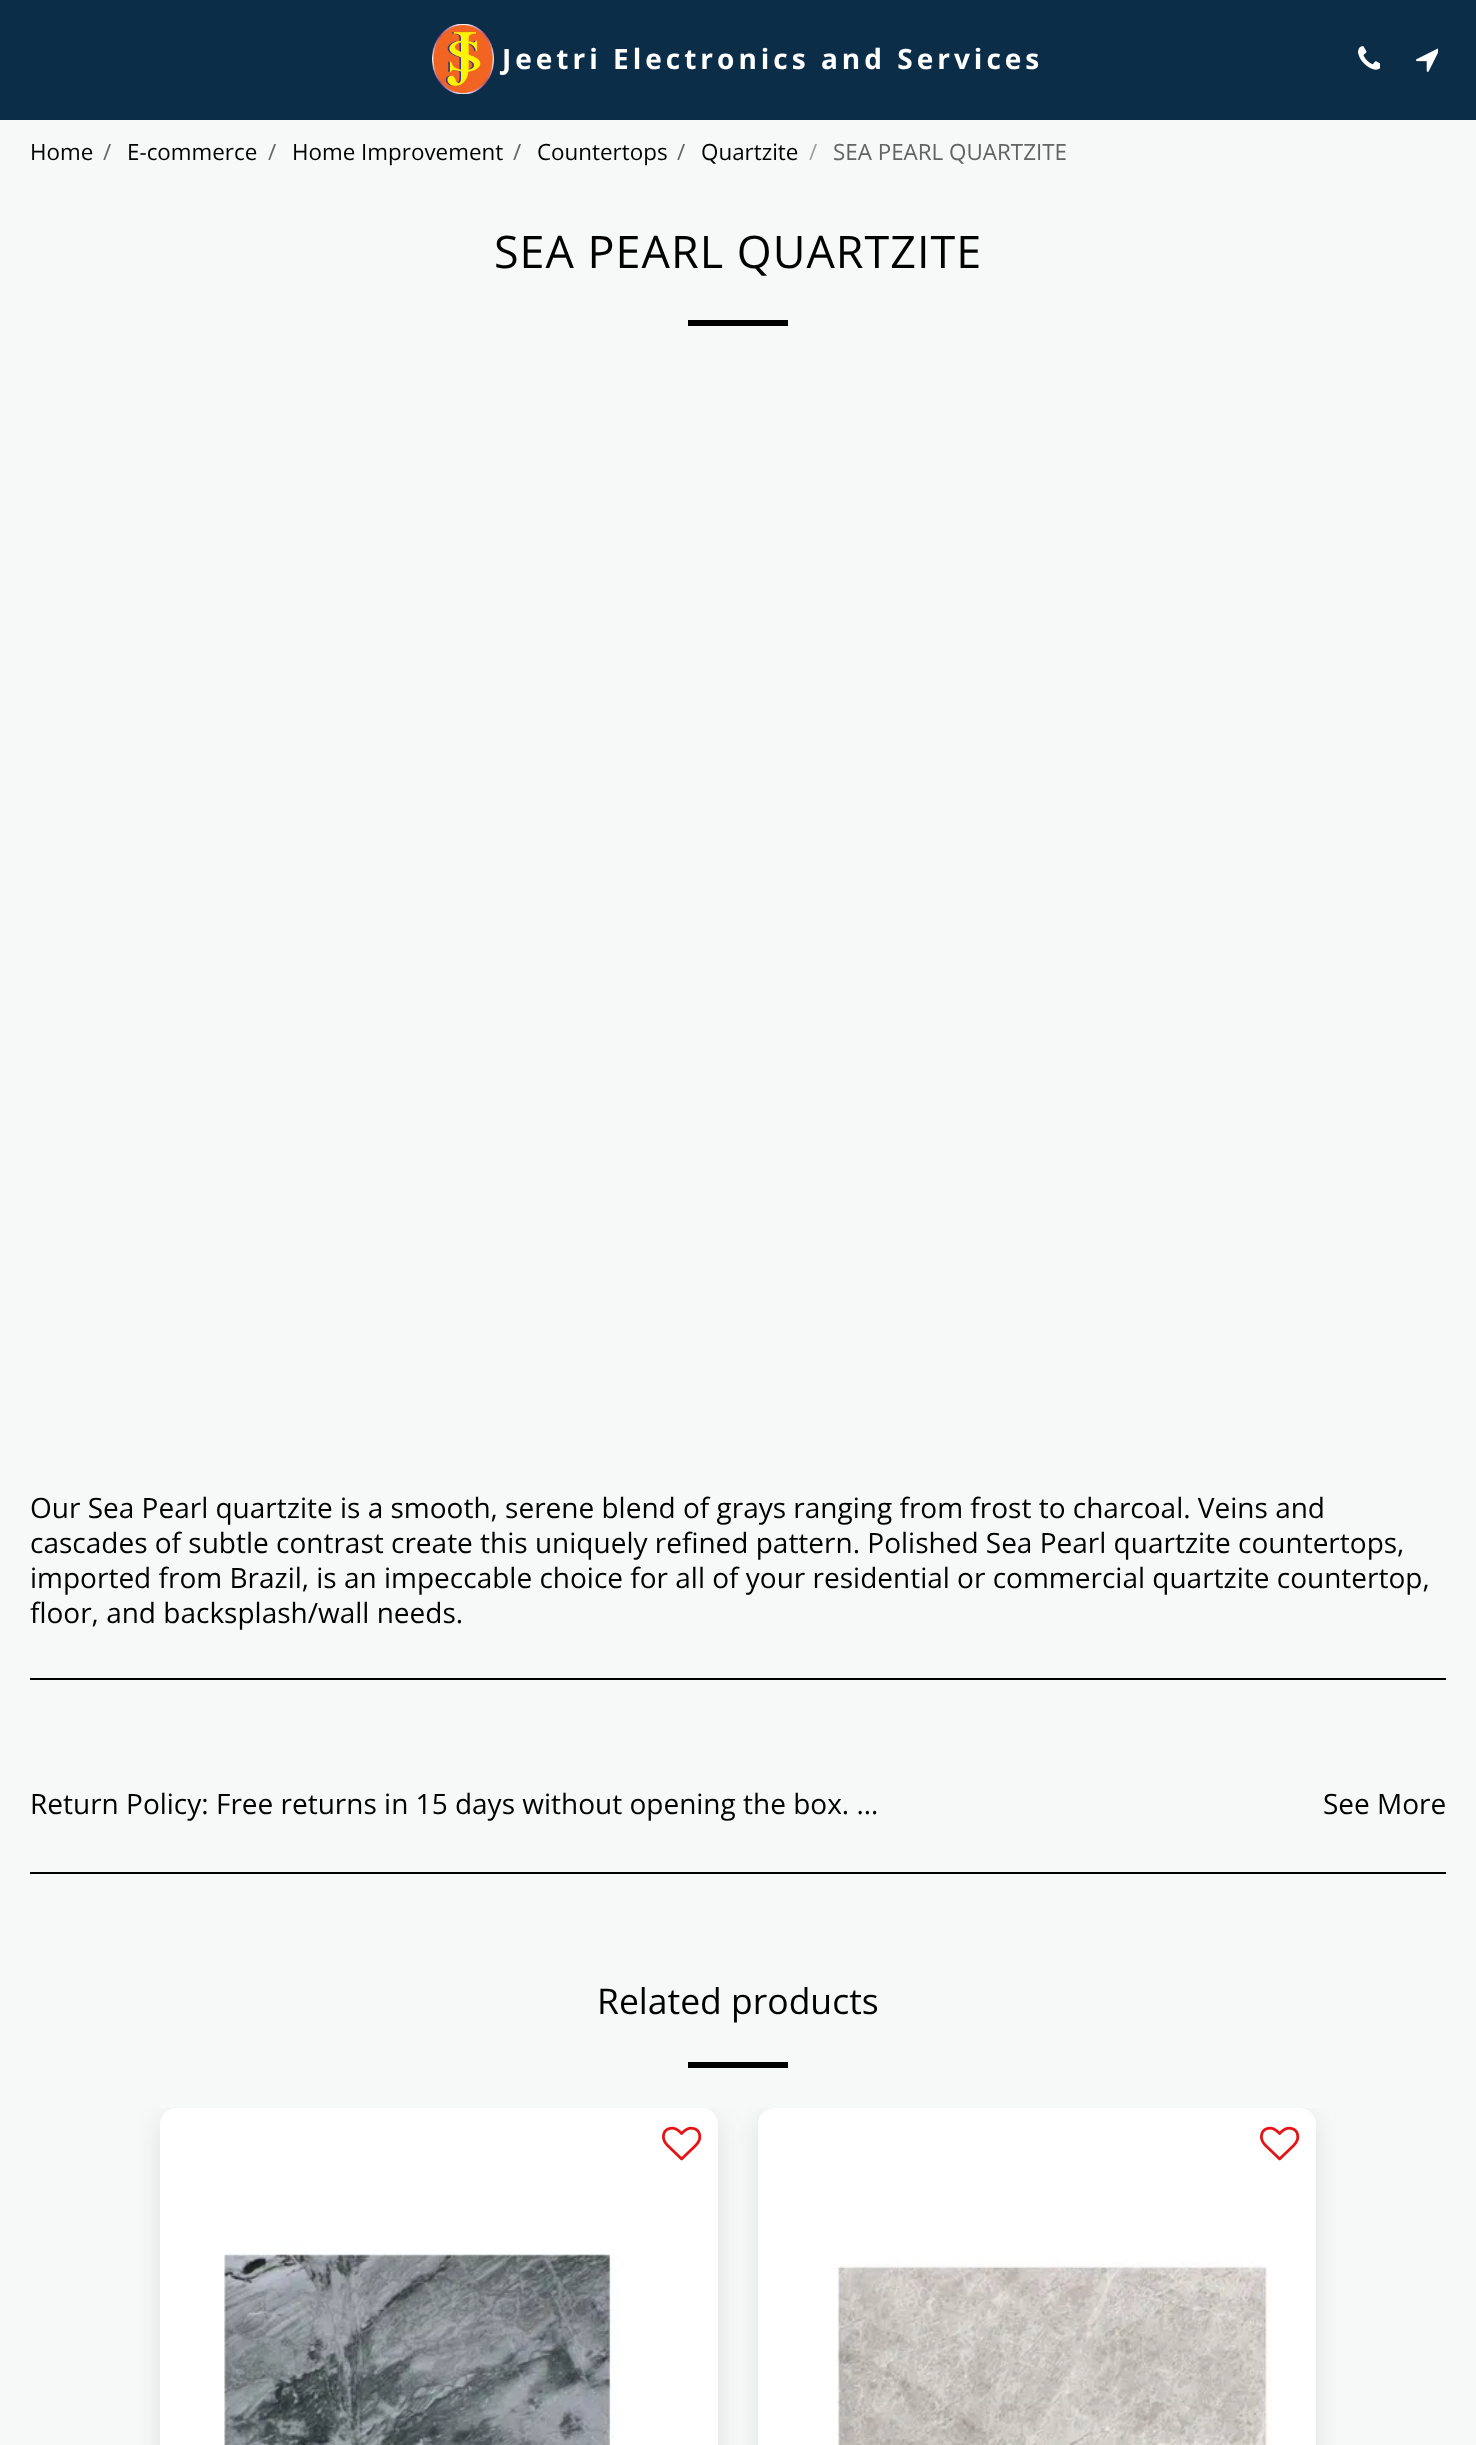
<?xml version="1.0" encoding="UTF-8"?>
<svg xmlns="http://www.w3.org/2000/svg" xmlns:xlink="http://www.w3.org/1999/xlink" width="1476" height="2445">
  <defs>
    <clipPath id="clip1"><rect x="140" y="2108" width="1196" height="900" /></clipPath>
  </defs>
  <rect width="100%" height="100%" fill="#f7f9f8" />
  <rect width="1476" height="120" fill="#0c2d48" />
  <image x="432" y="24" width="62" height="70" xlink:href="image1.png" />
  <image x="1358" y="46" width="22" height="24" xlink:href="image2.png" />
  <image x="1416" y="48" width="22" height="24" xlink:href="image3.png" />
  <rect x="688" y="320" width="100" height="6" fill="#000000" />
  <rect x="30" y="1678" width="1416" height="2" fill="#000000" />
  <rect x="30" y="1872" width="1416" height="2" fill="#000000" />
  <rect x="688" y="2062" width="100" height="6" fill="#000000" />
  <g clip-path="url(#clip1)">
    <rect x="160" y="2116" width="558" height="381" rx="16" fill="#818181" fill-opacity="0.2" filter="blur(12px)" />
  </g>
  <rect x="160" y="2108" width="558" height="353" rx="16" fill="#ebebeb" />
  <image x="160" y="2108" width="558" height="337" xlink:href="image4.png" />
  <image x="662" y="2126" width="40" height="35" xlink:href="image5.png" />
  <g clip-path="url(#clip1)">
    <rect x="758" y="2116" width="558" height="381" rx="16" fill="#818181" fill-opacity="0.2" filter="blur(12px)" />
  </g>
  <rect x="758" y="2108" width="558" height="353" rx="16" fill="#ebebeb" />
  <image x="758" y="2108" width="558" height="337" xlink:href="image6.png" />
  <image x="1260" y="2126" width="40" height="35" xlink:href="image5.png" />
  <text x="502" y="69" style="font-family: Open Sans; font-size: 28px; font-weight: bold; letter-spacing: 4px; fill: #ffffff">Jeetri Electronics and Services</text>
  <text x="30" y="160" style="font-family: Open Sans; font-size: 22.4px; fill: #000000">Home</text>
  <text x="103" y="160" style="font-family: Open Sans; font-size: 22.4px; fill: #636463">/</text>
  <text x="127" y="160" style="font-family: Open Sans; font-size: 22.4px; fill: #000000">E-commerce</text>
  <text x="268" y="160" style="font-family: Open Sans; font-size: 22.4px; fill: #636463">/</text>
  <text x="292" y="160" style="font-family: Open Sans; font-size: 22.4px; fill: #000000">Home Improvement</text>
  <text x="513" y="160" style="font-family: Open Sans; font-size: 22.4px; fill: #636463">/</text>
  <text x="537" y="160" style="font-family: Open Sans; font-size: 22.4px; fill: #000000">Countertops</text>
  <text x="677" y="160" style="font-family: Open Sans; font-size: 22.4px; fill: #636463">/</text>
  <text x="701" y="160" style="font-family: Open Sans; font-size: 22.4px; fill: #000000">Quartzite</text>
  <text x="809" y="160" style="font-family: Open Sans; font-size: 22.4px; fill: #9e9f9f">/</text>
  <text x="833" y="160" style="font-family: Open Sans; font-size: 22.4px; fill: #636463">SEA PEARL QUARTZITE</text>
  <text x="494" y="268" style="font-family: Open Sans; font-size: 44.9px; letter-spacing: 1px; fill: #000000">SEA PEARL QUARTZITE</text>
  <text x="30" y="1518" style="font-family: Open Sans; font-size: 28px; fill: #000000">Our Sea Pearl quartzite is a smooth, serene blend of grays ranging from frost to charcoal. Veins and</text>
  <text x="30" y="1553" style="font-family: Open Sans; font-size: 28px; fill: #000000">cascades of subtle contrast create this uniquely refined pattern. Polished Sea Pearl quartzite countertops,</text>
  <text x="30" y="1588" style="font-family: Open Sans; font-size: 28px; fill: #000000">imported from Brazil, is an impeccable choice for all of your residential or commercial quartzite countertop,</text>
  <text x="30" y="1623" style="font-family: Open Sans; font-size: 28px; fill: #000000">floor, and backsplash/wall needs.</text>
  <text x="30" y="1814" style="font-family: Open Sans; font-size: 28px; fill: #000000">Return Policy: Free returns in 15 days without opening the box. …</text>
  <text x="1323" y="1814" style="font-family: Open Sans; font-size: 28px; fill: #000000">See More</text>
  <text x="597" y="2014" style="font-family: Open Sans; font-size: 35.5px; fill: #000000">Related products</text>
</svg>
